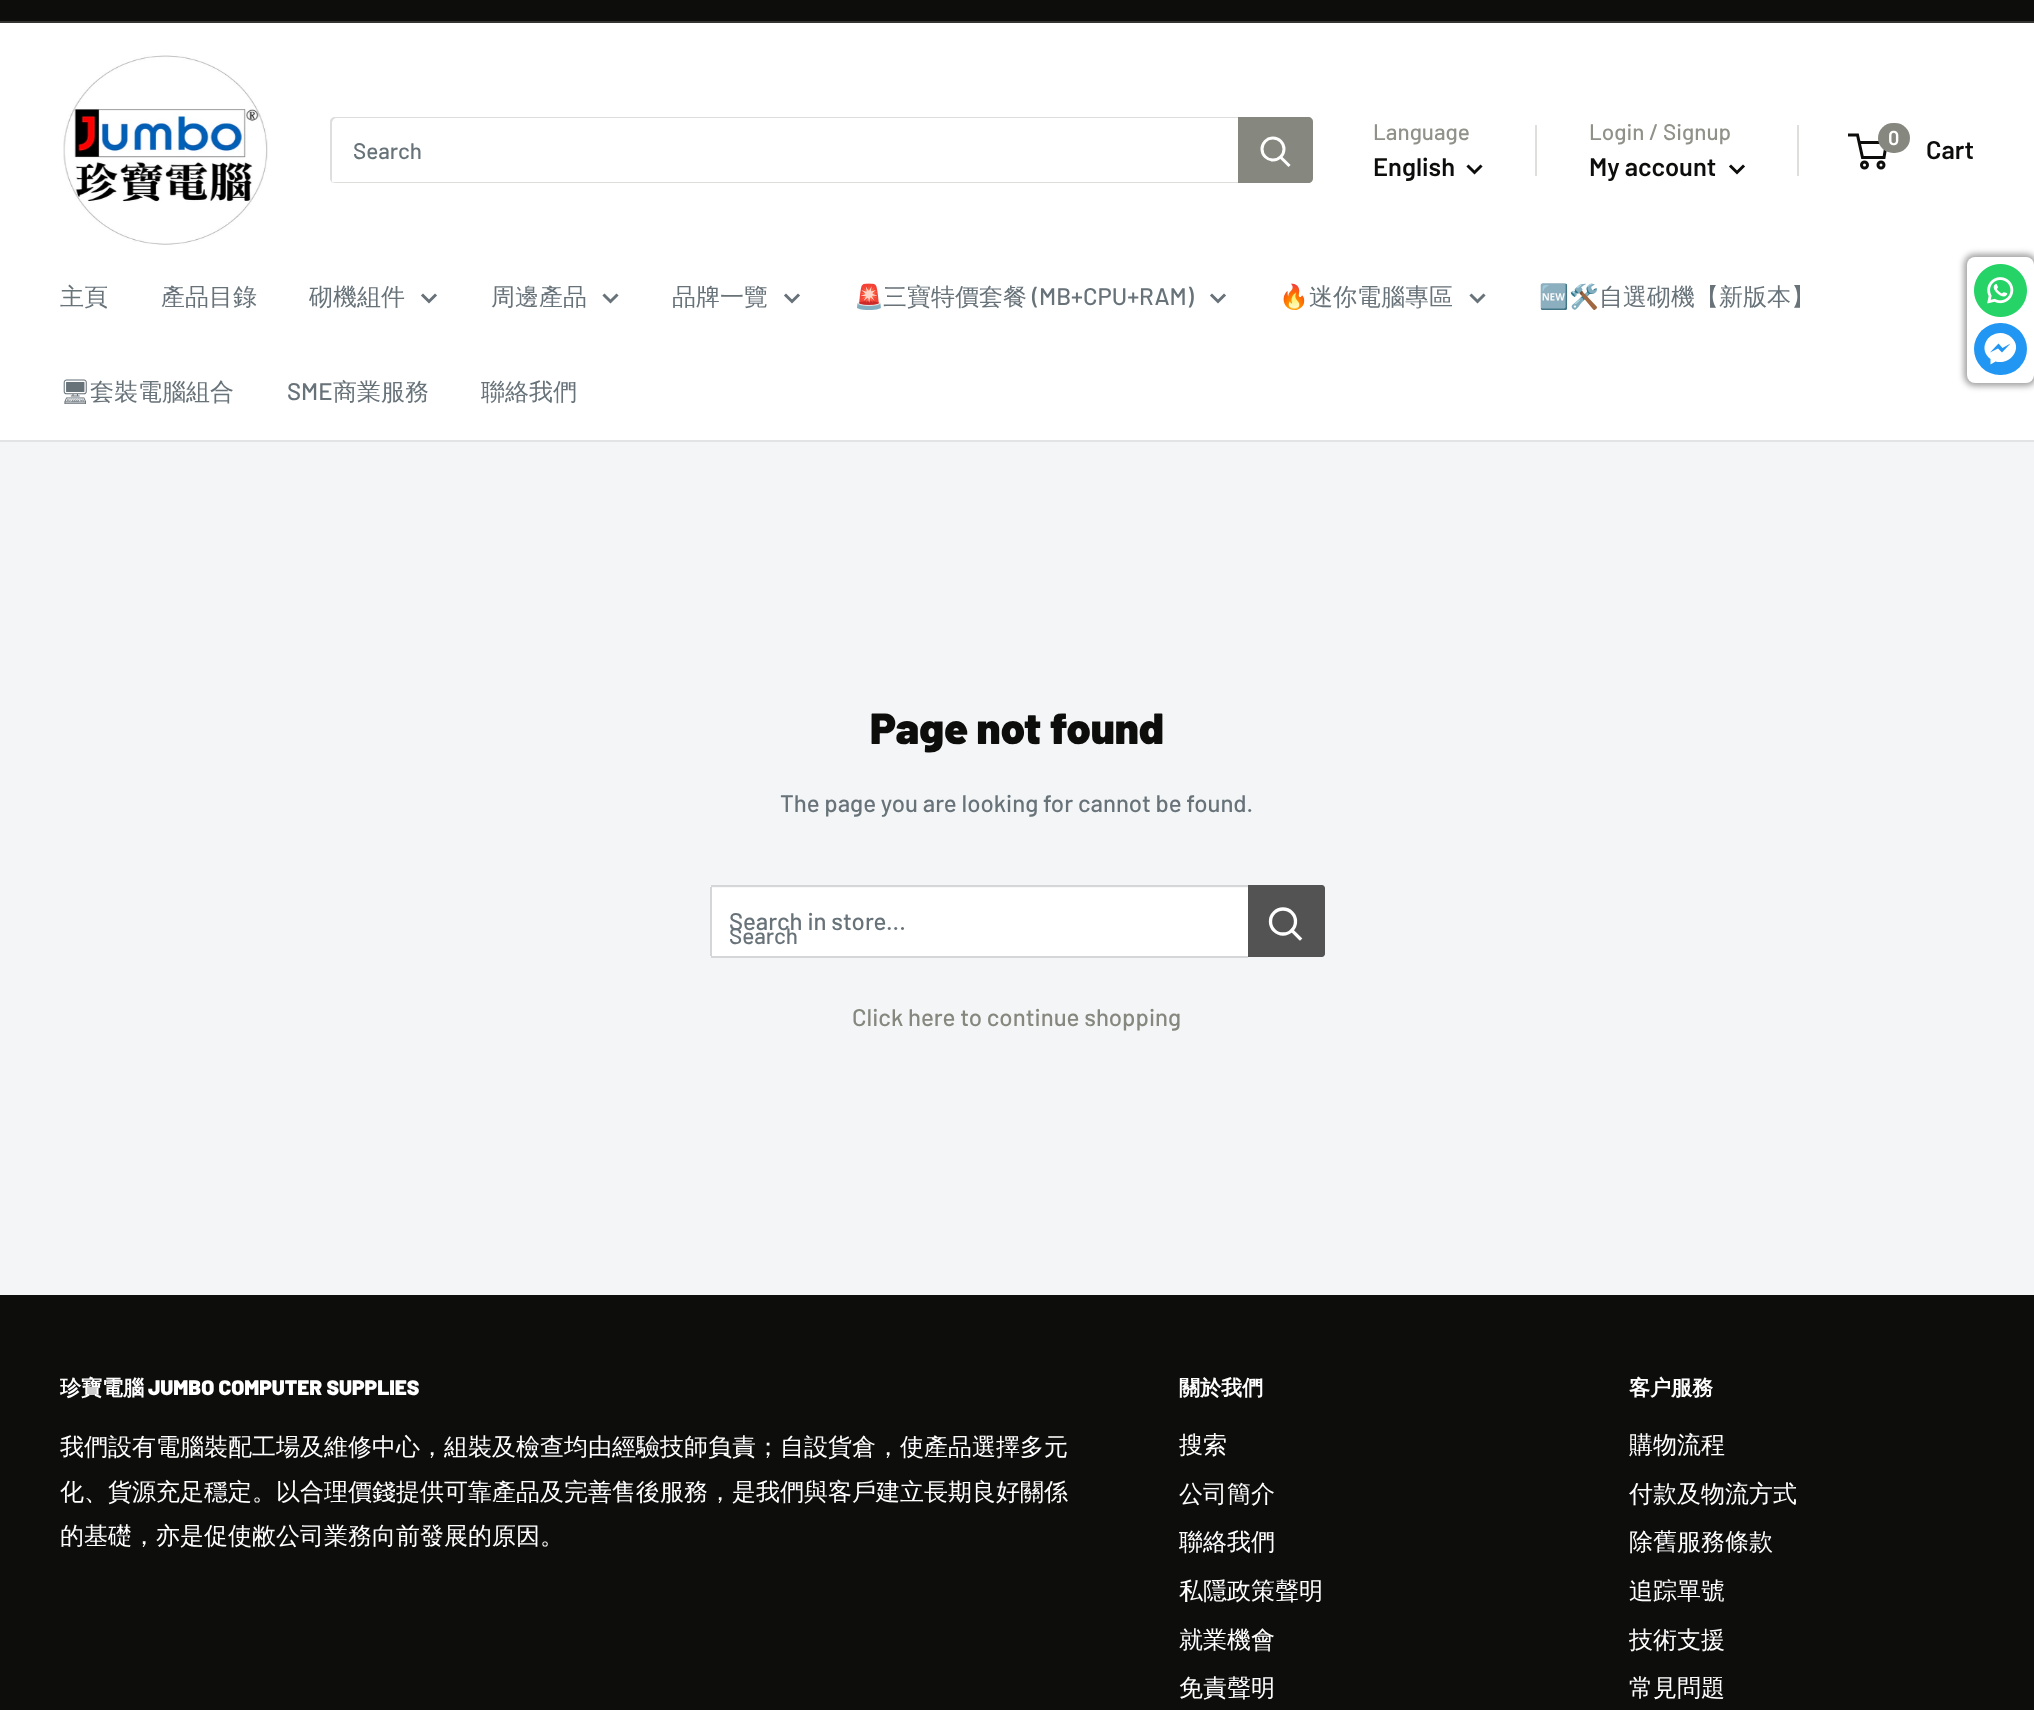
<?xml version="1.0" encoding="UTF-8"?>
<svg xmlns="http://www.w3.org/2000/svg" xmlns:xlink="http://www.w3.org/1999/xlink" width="2034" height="1710">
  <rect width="100%" height="100%" fill="#f3f5f6" />
  <rect width="2034" height="21" fill="#0d0d0c" />
  <rect y="21" width="2034" height="2" fill="#343532" />
  <rect y="23" width="2034" height="417" fill="#ffffff" />
  <image x="63" y="55" width="205" height="190" xlink:href="image1.png" />
  <path d="M 331 182 c 1 0 3 1 4 1 h 973 c 3 0 5 -2 5 -5 v -56 c 0 -2 -1 -4 -3 -5 c 1 1 1 2 1 3 v 57 c 0 2 -2 5 -5 5 h -973 z" fill="#dededc" />
  <path d="M 336 118 h 974 l 2 1 c -1 -1 -2 -2 -4 -2 h -973 c -3 0 -5 2 -5 5 v 56 c 0 2 1 4 3 5 c -1 -1 -1 -2 -1 -3 v -57 c 0 -2 2 -5 4 -5 z" fill="#dededc" />
  <path d="M 1238 117 h 70 c 3 0 5 2 5 5 v 56 c 0 3 -2 5 -5 5 h -70 z" fill="#86877e" />
  <path d="M 1288.5 165 l -7.5 -7.5" fill="none" stroke="#ffffff" stroke-width="3" stroke-linecap="square" />
  <circle cx="1273" cy="149" r="11" fill="none" stroke="#ffffff" stroke-width="3" />
  <path d="M 1480.5 166.5 l -6 6 l -6 -6" fill="none" stroke="#0d0d0c" stroke-width="3" stroke-linecap="square" />
  <rect x="1535" y="125" width="2" height="51" fill="#dededc" />
  <rect x="1797" y="125" width="2" height="51" fill="#dededc" />
  <path d="M 1743 166.5 l -6 6 l -6 -6" fill="none" stroke="#0d0d0c" stroke-width="3" stroke-linecap="square" />
  <circle cx="1864.5" cy="165" r="3" fill="none" stroke="#0d0d0c" stroke-width="3" />
  <circle cx="1881" cy="165" r="3" fill="none" stroke="#0d0d0c" stroke-width="3" />
  <path d="M 1859 142.5 h 27.5 l -2.5 15 h -21.5 l -5 -22.5 h -9.5" fill="none" stroke="#0d0d0c" stroke-width="3" />
  <rect x="1878" y="123" width="32" height="30" rx="15" fill="#86877e" />
  <rect y="440" width="2034" height="2" fill="#e1e3e4" />
  <path d="M 435 295.5 l -6 6 l -6 -6" fill="none" stroke="#677279" stroke-width="3" stroke-linecap="square" />
  <path d="M 616.5 295.5 l -6 6 l -6 -6" fill="none" stroke="#677279" stroke-width="3" stroke-linecap="square" />
  <path d="M 798 295.5 l -6 6 l -6 -6" fill="none" stroke="#677279" stroke-width="3" stroke-linecap="square" />
  <path d="M 1224 295.5 l -6 6 l -6 -6" fill="none" stroke="#677279" stroke-width="3" stroke-linecap="square" />
  <path d="M 1483.5 295.5 l -6 6 l -6 -6" fill="none" stroke="#677279" stroke-width="3" stroke-linecap="square" />
  <rect x="1964" y="254" width="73" height="132" rx="11" fill="#9e9e9e" filter="blur(3px)" />
  <rect x="1967" y="257" width="67" height="126" rx="8" fill="#ffffff" />
  <image x="1974" y="264" width="53" height="53" xlink:href="image2.png" />
  <rect x="1974" y="323" width="53" height="52" rx="26" fill="#2196f3" />
  <path d="M 2000.5 333 c -14.5 0 -22 17 -10 26 v 5.5 l 5 -3 c 14.5 4 28 -13 16 -24 c -3 -3 -7 -4.5 -11 -4.5 z m 1.5 19.5 l -4 -4 l -8 4 l 8.5 -9 l 4 4.5 l 8 -4.5 z" fill="#ffffff" />
  <path d="M 713 885 h 535 v 72 h -535 c -1.5 0 -3 -1.5 -3 -3 v -66 c 0 -1.5 1.5 -3 3 -3 z" fill="#ffffff" />
  <path d="M 712 888 h 536 v -1 h -536 c -1 0 -1 2 -1 3 z" fill="#f8f8f8" />
  <rect x="711" y="885" width="537" height="2" fill="#d4d6d8" />
  <rect x="711" y="956" width="537" height="2" fill="#d4d6d8" />
  <rect x="710" y="887" width="2" height="69" fill="#d4d6d8" />
  <path d="M 1248 885 h 74 c 1.5 0 3 1.5 3 3 v 66 c 0 1.5 -1.5 3 -3 3 h -74 z" fill="#535353" />
  <path d="M 1300 938.5 l -8 -8" fill="none" stroke="#ffffff" stroke-width="3.3" stroke-linecap="square" />
  <circle cx="1283" cy="921.5" r="12.5" fill="none" stroke="#ffffff" stroke-width="3.3" />
  <rect y="1295" width="2034" height="415" fill="#0d0d0c" />
  <text x="353" y="159" style="font-family: Barlow; font-size: 22.5px; font-weight: 500; fill: #677279">Search</text>
  <text x="1373" y="140" style="font-family: Barlow; font-size: 22.5px; font-weight: 500; fill: #909189">Language</text>
  <text x="1373" y="176" style="font-family: Barlow; font-size: 25.5px; font-weight: 600; fill: #0d0d0c">English</text>
  <text x="1589" y="140" style="font-family: Barlow; font-size: 22.5px; font-weight: 500; fill: #909189">Login / Signup</text>
  <text x="1589" y="176" style="font-family: Barlow; font-size: 25.5px; font-weight: 600; fill: #0d0d0c">My account</text>
  <text x="1888" y="145" style="font-family: Barlow; font-size: 20px; font-weight: 600; fill: #ffffff">0</text>
  <text x="1926" y="159" style="font-family: Barlow; font-size: 25.5px; font-weight: 600; fill: #0d0d0c">Cart</text>
  <text x="60" y="305" style="font-family: WenQuanYi Zen Hei; font-size: 24px; font-weight: 500; fill: #677279">主頁</text>
  <text x="161" y="305" style="font-family: WenQuanYi Zen Hei; font-size: 24px; font-weight: 500; fill: #677279">產品目錄</text>
  <text x="309" y="305" style="font-family: WenQuanYi Zen Hei; font-size: 24px; font-weight: 500; fill: #677279">砌機組件</text>
  <text x="491" y="305" style="font-family: WenQuanYi Zen Hei; font-size: 24px; font-weight: 500; fill: #677279">周邊產品</text>
  <text x="672" y="305" style="font-family: WenQuanYi Zen Hei; font-size: 24px; font-weight: 500; fill: #677279">品牌一覽</text>
  <text x="854" y="305" style="font-family: Noto Color Emoji; font-size: 24px; fill: #677279">🚨</text>
  <text x="883" y="305" style="font-family: WenQuanYi Zen Hei; font-size: 24px; font-weight: 500; fill: #677279">三寶特價套餐</text>
  <text x="1032" y="305" style="font-family: Barlow; font-size: 24px; font-weight: 500; fill: #677279">(MB+CPU+RAM)</text>
  <text x="1279" y="305" style="font-family: Noto Color Emoji; font-size: 24px; fill: #677279">🔥</text>
  <text x="1309" y="305" style="font-family: WenQuanYi Zen Hei; font-size: 24px; font-weight: 500; fill: #677279">迷你電腦專區</text>
  <text x="1539" y="305" style="font-family: Noto Color Emoji; font-size: 24px; fill: #677279">🆕🛠️</text>
  <text x="1599" y="305" style="font-family: WenQuanYi Zen Hei; font-size: 24px; font-weight: 500; fill: #677279">自選砌機【新版本】</text>
  <text x="60" y="400" style="font-family: Noto Emoji; font-size: 24px; font-weight: 500; fill: #677279">🖥</text>
  <text x="90" y="400" style="font-family: WenQuanYi Zen Hei; font-size: 24px; font-weight: 500; fill: #677279">套裝電腦組合</text>
  <text x="287" y="400" style="font-family: Barlow; font-size: 24px; font-weight: 500; fill: #677279">SME</text>
  <text x="333" y="400" style="font-family: WenQuanYi Zen Hei; font-size: 24px; font-weight: 500; fill: #677279">商業服務</text>
  <text x="481" y="400" style="font-family: WenQuanYi Zen Hei; font-size: 24px; font-weight: 500; fill: #677279">聯絡我們</text>
  <text x="870" y="744" style="font-family: Barlow; font-size: 43.5px; font-weight: 900; fill: #0d0d0c">Page not found</text>
  <text x="780" y="812" style="font-family: Barlow; font-size: 24px; font-weight: 500; fill: #677279">The page you are looking for cannot be found.</text>
  <text x="729" y="930" style="font-family: Barlow; font-size: 24px; font-weight: 500; fill: #677279">Search in store...</text>
  <text x="729" y="944" style="font-family: Barlow; font-size: 22.5px; font-weight: 500; fill: #677279">Search</text>
  <text x="852" y="1026" style="font-family: Barlow; font-size: 24px; font-weight: 500; fill: #86877e">Click here to continue shopping</text>
  <text x="60" y="1395" style="font-family: WenQuanYi Zen Hei; font-size: 21px; font-weight: bold; fill: #ffffff">珍寶電腦</text>
  <text x="148" y="1395" style="font-family: Barlow; font-size: 21px; font-weight: 900; fill: #ffffff">JUMBO COMPUTER SUPPLIES</text>
  <text x="60" y="1455" style="font-family: WenQuanYi Zen Hei; font-size: 24px; font-weight: 500; fill: #ffffff">我們設有電腦裝配工場及維修中心，組裝及檢查均由經驗技師負責；自設貨倉，使產品選擇多元</text>
  <text x="60" y="1500" style="font-family: WenQuanYi Zen Hei; font-size: 24px; font-weight: 500; fill: #ffffff">化、貨源充足穩定。以合理價錢提供可靠產品及完善售後服務，是我們與客戶建立長期良好關係</text>
  <text x="60" y="1544" style="font-family: WenQuanYi Zen Hei; font-size: 24px; font-weight: 500; fill: #ffffff">的基礎，亦是促使敝公司業務向前發展的原因。</text>
  <text x="1179" y="1395" style="font-family: WenQuanYi Zen Hei; font-size: 21px; font-weight: bold; fill: #ffffff">關於我們</text>
  <text x="1179" y="1453" style="font-family: WenQuanYi Zen Hei; font-size: 24px; font-weight: 500; fill: #ffffff">搜索</text>
  <text x="1179" y="1502" style="font-family: WenQuanYi Zen Hei; font-size: 24px; font-weight: 500; fill: #ffffff">公司簡介</text>
  <text x="1179" y="1550" style="font-family: WenQuanYi Zen Hei; font-size: 24px; font-weight: 500; fill: #ffffff">聯絡我們</text>
  <text x="1179" y="1599" style="font-family: WenQuanYi Zen Hei; font-size: 24px; font-weight: 500; fill: #ffffff">私隱政策聲明</text>
  <text x="1179" y="1648" style="font-family: WenQuanYi Zen Hei; font-size: 24px; font-weight: 500; fill: #ffffff">就業機會</text>
  <text x="1179" y="1696" style="font-family: WenQuanYi Zen Hei; font-size: 24px; font-weight: 500; fill: #ffffff">免責聲明</text>
  <text x="1629" y="1395" style="font-family: WenQuanYi Zen Hei; font-size: 21px; font-weight: bold; fill: #ffffff">客户服務</text>
  <text x="1629" y="1453" style="font-family: WenQuanYi Zen Hei; font-size: 24px; font-weight: 500; fill: #ffffff">購物流程</text>
  <text x="1629" y="1502" style="font-family: WenQuanYi Zen Hei; font-size: 24px; font-weight: 500; fill: #ffffff">付款及物流方式</text>
  <text x="1629" y="1550" style="font-family: WenQuanYi Zen Hei; font-size: 24px; font-weight: 500; fill: #ffffff">除舊服務條款</text>
  <text x="1629" y="1599" style="font-family: WenQuanYi Zen Hei; font-size: 24px; font-weight: 500; fill: #ffffff">追踪單號</text>
  <text x="1629" y="1648" style="font-family: WenQuanYi Zen Hei; font-size: 24px; font-weight: 500; fill: #ffffff">技術支援</text>
  <text x="1629" y="1696" style="font-family: WenQuanYi Zen Hei; font-size: 24px; font-weight: 500; fill: #ffffff">常見問題</text>
</svg>
